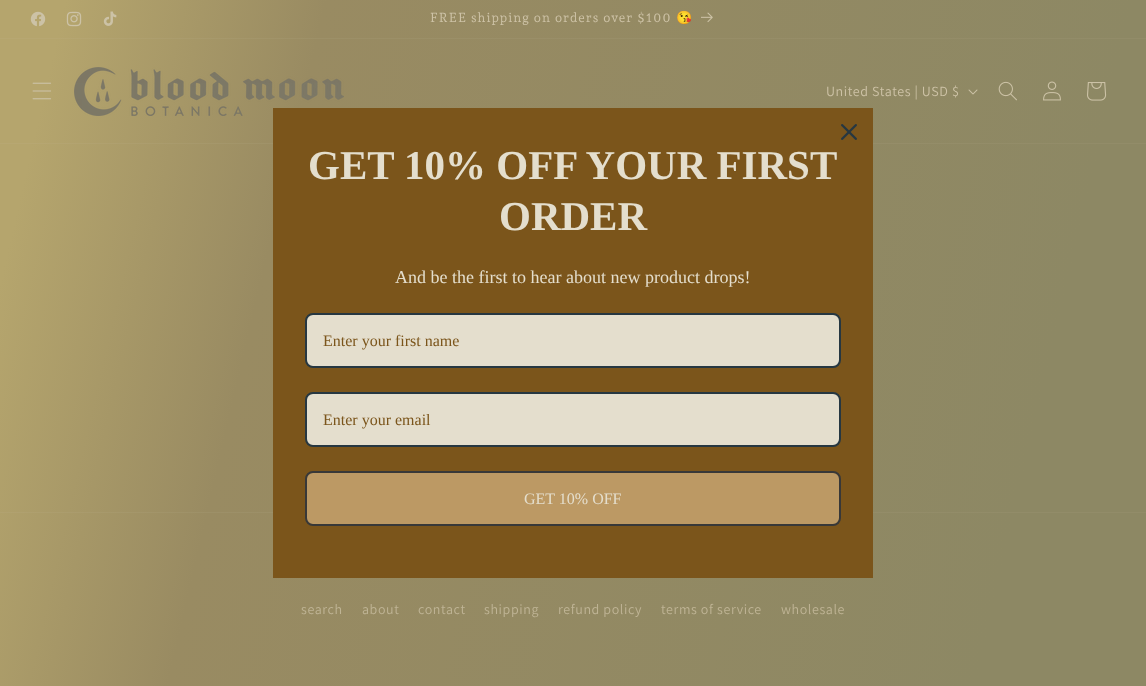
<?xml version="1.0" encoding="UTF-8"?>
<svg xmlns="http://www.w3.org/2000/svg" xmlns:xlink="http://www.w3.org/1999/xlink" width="1146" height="686">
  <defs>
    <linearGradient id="g1" gradientUnits="userSpaceOnUse" x1="-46" y1="200" x2="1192" y2="486"><stop offset="0.05" stop-color="#b5a56d" /><stop offset="0.25" stop-color="#998b62" /><stop offset="0.87" stop-color="#8d8864" /></linearGradient>
    <linearGradient id="g2" gradientUnits="userSpaceOnUse" x1="-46" y1="200" x2="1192" y2="486"><stop offset="0.05" stop-color="#b7a772" /><stop offset="0.25" stop-color="#9d9068" /><stop offset="0.87" stop-color="#928c69" /></linearGradient>
  </defs>
  <rect width="100%" height="100%" fill="#ffffff" />
  <rect width="1146" height="686" fill="url(#g1)" />
  <rect y="38" width="1146" height="1" fill="url(#g2)" />
  <rect y="143" width="1146" height="1" fill="url(#g2)" />
  <rect y="512" width="1146" height="1" fill="url(#g2)" />
  <image x="30" y="11" width="16" height="16" xlink:href="image1.png" />
  <image x="66" y="11" width="16" height="16" xlink:href="image2.png" />
  <image x="103" y="11" width="14" height="15" xlink:href="image3.png" />
  <image x="701" y="12" width="12" height="11" xlink:href="image4.png" />
  <image x="32" y="82" width="20" height="18" xlink:href="image5.png" />
  <image x="74" y="67" width="270" height="49" xlink:href="image6.png" />
  <image x="968" y="89" width="10" height="6" xlink:href="image7.png" />
  <image x="998" y="81" width="19" height="20" xlink:href="image8.png" />
  <image x="1043" y="81" width="18" height="20" xlink:href="image9.png" />
  <image x="1087" y="82" width="20" height="19" xlink:href="image10.png" />
  <rect x="273" y="108" width="600" height="470" fill="#7b551b" />
  <image x="841" y="124" width="16" height="16" xlink:href="image11.png" />
  <rect x="306" y="314" width="534" height="53" rx="7" fill="#e4decd" stroke="#263741" stroke-width="2" />
  <rect x="306" y="393" width="534" height="53" rx="7" fill="#e4decd" stroke="#263741" stroke-width="2" />
  <rect x="306" y="472" width="534" height="53" rx="7" fill="#bc9964" stroke="#383838" stroke-width="2" />
  <text x="430" y="22" style="font-family: Andada Pro; font-size: 13px; letter-spacing: 1px; fill: #cdc2a6">FREE shipping on orders over $100</text>
  <text x="676" y="22" style="font-family: Noto Color Emoji; font-size: 13px; letter-spacing: 1px; fill: #cdc2a6">😘</text>
  <text x="826" y="96" style="font-family: Assistant; font-size: 14px; letter-spacing: 0.6px; fill: #cdc2a6">United States | USD $</text>
  <text x="308" y="179" style="font-family: Liberation Serif; font-size: 41px; font-weight: bold; fill: #e4decd">GET 10% OFF YOUR FIRST</text>
  <text x="499" y="230" style="font-family: Liberation Serif; font-size: 41px; font-weight: bold; fill: #e4decd">ORDER</text>
  <text x="395" y="283" style="font-family: Liberation Serif; font-size: 18px; fill: #e4decd">And be the first to hear about new product drops!</text>
  <text x="323" y="346" style="font-family: Liberation Serif; font-size: 16px; fill: #7b551b">Enter your first name</text>
  <text x="323" y="425" style="font-family: Liberation Serif; font-size: 16px; fill: #7b551b">Enter your email</text>
  <text x="524" y="504" style="font-family: Liberation Serif; font-size: 16px; fill: #e4decd">GET 10% OFF</text>
  <text x="301" y="614" style="font-family: Assistant; font-size: 14px; letter-spacing: 0.6px; fill: #bfb495">search</text>
  <text x="362" y="614" style="font-family: Assistant; font-size: 14px; letter-spacing: 0.6px; fill: #bfb495">about</text>
  <text x="418" y="614" style="font-family: Assistant; font-size: 14px; letter-spacing: 0.6px; fill: #bfb495">contact</text>
  <text x="484" y="614" style="font-family: Assistant; font-size: 14px; letter-spacing: 0.6px; fill: #bfb495">shipping</text>
  <text x="558" y="614" style="font-family: Assistant; font-size: 14px; letter-spacing: 0.6px; fill: #bfb495">refund policy</text>
  <text x="661" y="614" style="font-family: Assistant; font-size: 14px; letter-spacing: 0.6px; fill: #bfb495">terms of service</text>
  <text x="781" y="614" style="font-family: Assistant; font-size: 14px; letter-spacing: 0.6px; fill: #bfb495">wholesale</text>
</svg>
